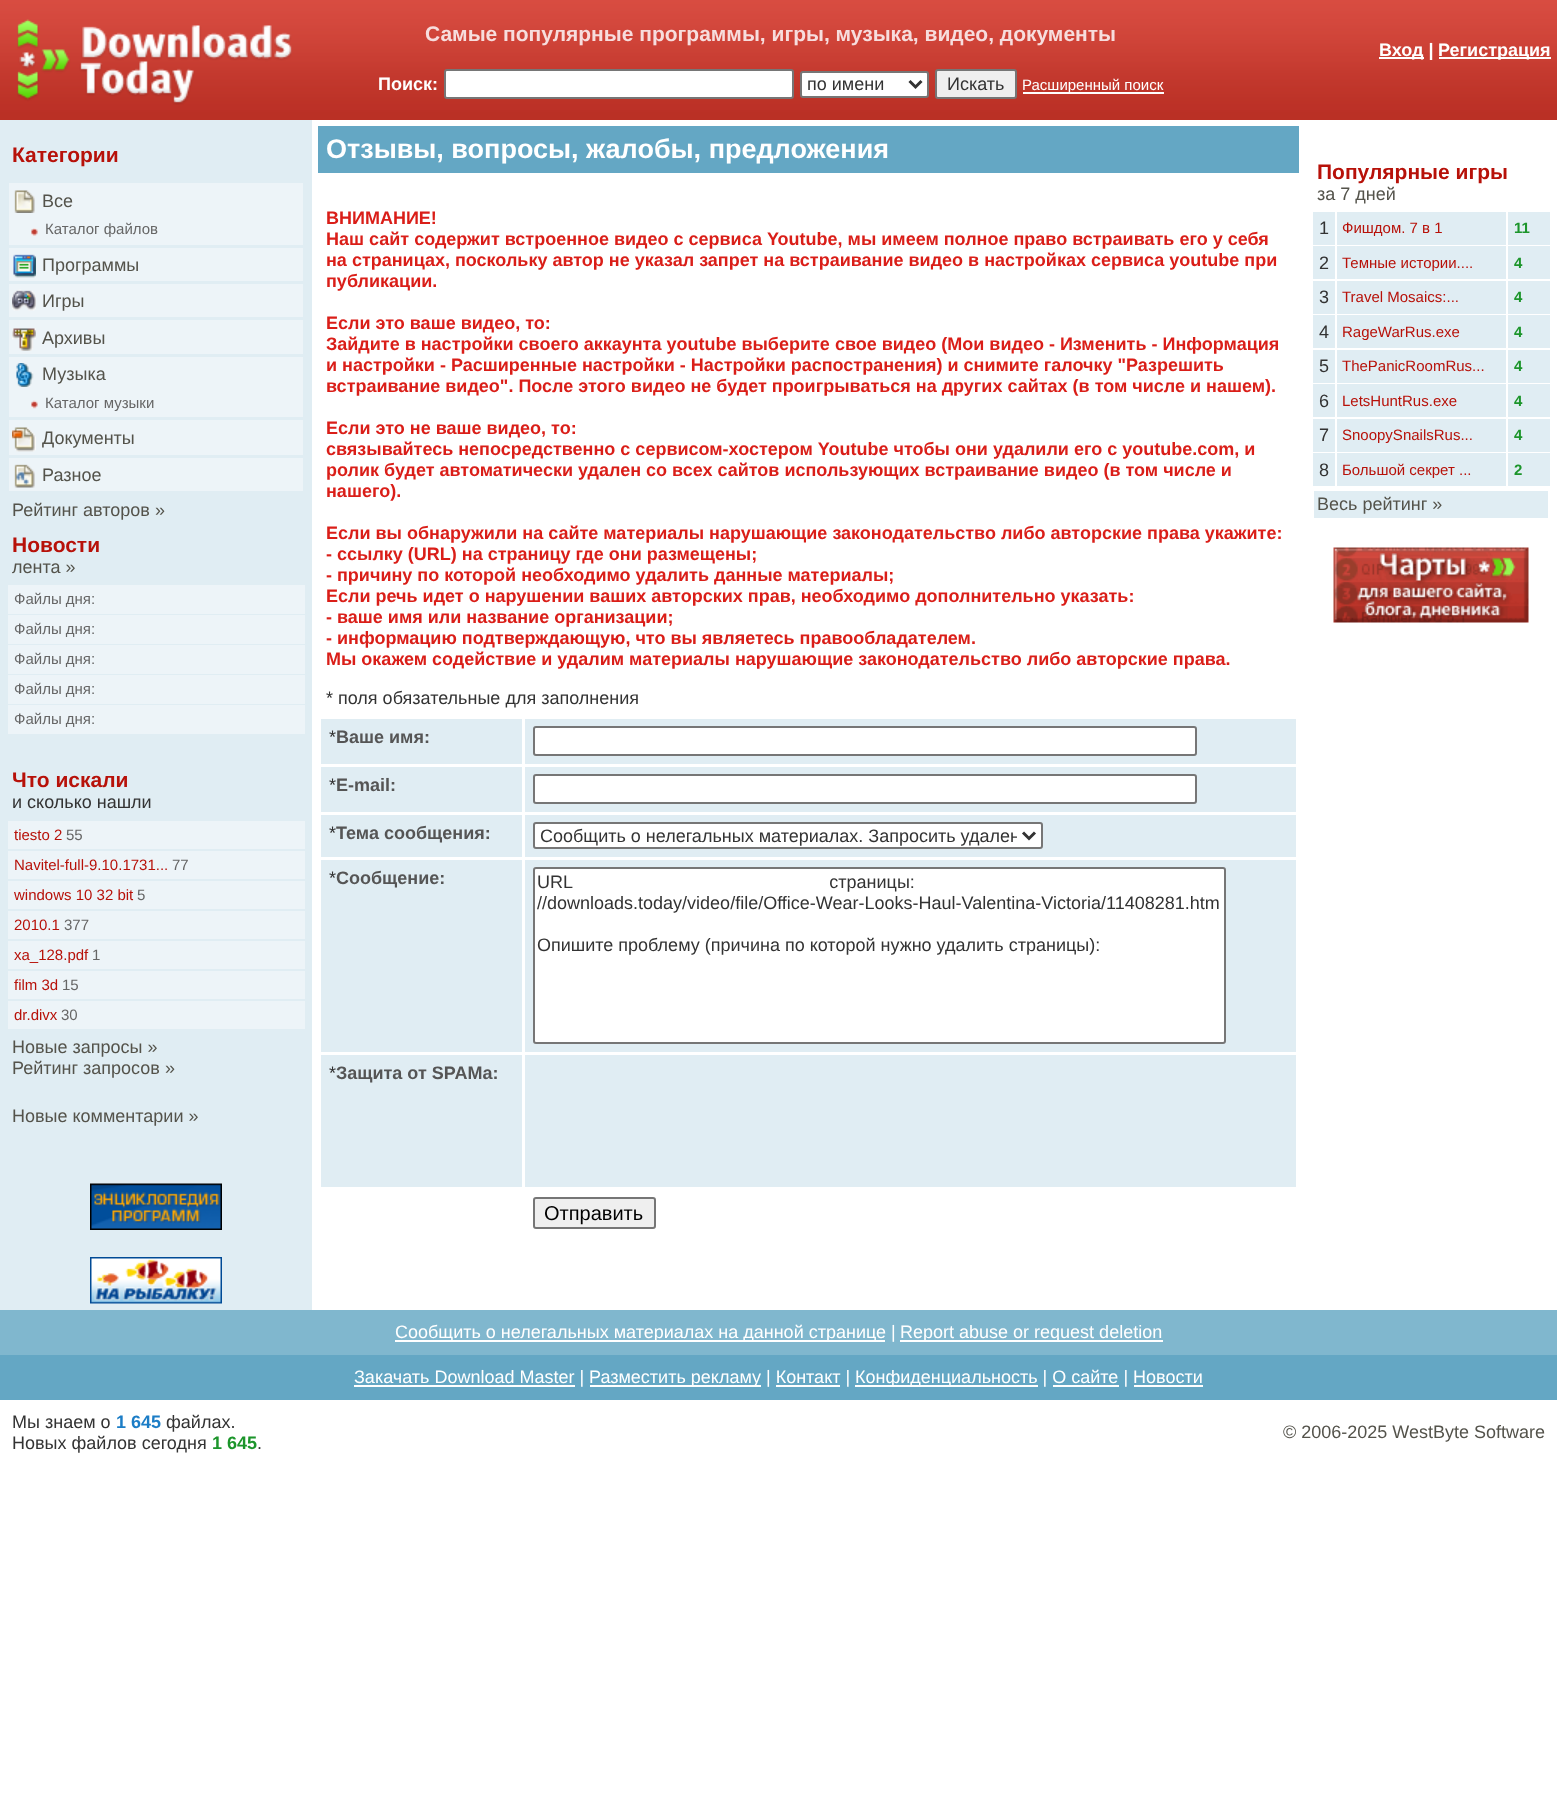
<?xml version="1.0" encoding="UTF-8"?>
<svg xmlns="http://www.w3.org/2000/svg" xmlns:xlink="http://www.w3.org/1999/xlink" width="1557" height="1794">
  <defs>
    <clipPath id="clip1"><rect x="540" y="824" width="477" height="24" /></clipPath>
  </defs>
  <rect width="100%" height="100%" fill="#ffffff" />
  <image x="0" y="0" width="300" height="120" xlink:href="image1.png" />
  <image x="17" y="19" width="275" height="86" xlink:href="image2.png" />
  <image x="300" y="0" width="1257" height="120" xlink:href="image3.png" />
  <rect x="1379" y="57" width="45" height="2" fill="#ffffff" />
  <rect x="1439" y="57" width="112" height="2" fill="#ffffff" />
  <rect x="445" y="70" width="348" height="28" rx="2" fill="#ffffff" stroke="#767676" stroke-width="2" />
  <rect x="801" y="72" width="127" height="25" rx="2" fill="#ffffff" stroke="#767676" stroke-width="2" />
  <path d="M 909.5 81 l 6 6 l 6 -6" fill="none" stroke="#333333" stroke-width="3" />
  <rect x="936" y="70" width="80" height="28" rx="2" fill="#efefef" stroke="#767676" stroke-width="2" />
  <rect x="1023" y="92" width="141" height="2" fill="#ffffff" />
  <rect y="120" width="312" height="1190" fill="#e0edf3" />
  <rect x="9" y="183" width="294" height="62" fill="#edf4f8" />
  <image x="14" y="190" width="21" height="23" xlink:href="image4.png" />
  <image x="31" y="228" width="7" height="8" xlink:href="image5.png" />
  <rect x="9" y="248" width="294" height="33" fill="#edf4f8" />
  <image x="13" y="254" width="23" height="24" xlink:href="image6.png" />
  <rect x="9" y="284" width="294" height="33" fill="#edf4f8" />
  <image x="12" y="289" width="24" height="22" xlink:href="image7.png" />
  <rect x="9" y="320" width="294" height="34" fill="#edf4f8" />
  <image x="12" y="328" width="24" height="23" xlink:href="image8.png" />
  <rect x="9" y="357" width="294" height="60" fill="#edf4f8" />
  <image x="16" y="363" width="18" height="24" xlink:href="image9.png" />
  <image x="31" y="400" width="7" height="9" xlink:href="image10.png" />
  <rect x="9" y="420" width="294" height="35" fill="#edf4f8" />
  <image x="12" y="427" width="24" height="25" xlink:href="image11.png" />
  <rect x="9" y="458" width="294" height="33" fill="#edf4f8" />
  <image x="14" y="464" width="21" height="24" xlink:href="image12.png" />
  <rect x="8" y="585" width="297" height="29" fill="#edf4f8" />
  <rect x="8" y="615" width="297" height="29" fill="#edf4f8" />
  <rect x="8" y="645" width="297" height="29" fill="#edf4f8" />
  <rect x="8" y="675" width="297" height="29" fill="#edf4f8" />
  <rect x="8" y="705" width="297" height="29" fill="#edf4f8" />
  <rect x="8" y="821" width="297" height="28" fill="#edf4f8" />
  <rect x="8" y="851" width="297" height="28" fill="#edf4f8" />
  <rect x="8" y="881" width="297" height="28" fill="#edf4f8" />
  <rect x="8" y="911" width="297" height="28" fill="#edf4f8" />
  <rect x="8" y="941" width="297" height="28" fill="#edf4f8" />
  <rect x="8" y="971" width="297" height="28" fill="#edf4f8" />
  <rect x="8" y="1001" width="297" height="28" fill="#edf4f8" />
  <image x="90" y="1183" width="132" height="47" xlink:href="image13.png" />
  <image x="90" y="1257" width="132" height="47" xlink:href="image14.png" />
  <rect x="318" y="126" width="981" height="47" fill="#64a7c4" />
  <rect x="321" y="719" width="201" height="45" fill="#e0edf3" />
  <rect x="525" y="719" width="771" height="45" fill="#e0edf3" />
  <rect x="534" y="727" width="662" height="28" rx="2" fill="#ffffff" stroke="#767676" stroke-width="2" />
  <rect x="321" y="767" width="201" height="45" fill="#e0edf3" />
  <rect x="525" y="767" width="771" height="45" fill="#e0edf3" />
  <rect x="534" y="775" width="662" height="28" rx="2" fill="#ffffff" stroke="#767676" stroke-width="2" />
  <rect x="321" y="815" width="201" height="42" fill="#e0edf3" />
  <rect x="525" y="815" width="771" height="42" fill="#e0edf3" />
  <rect x="534" y="823" width="508" height="25" rx="2" fill="#ffffff" stroke="#767676" stroke-width="2" />
  <path d="M 1023 832.5 l 6 6 l 6 -6" fill="none" stroke="#333333" stroke-width="3" />
  <rect x="321" y="860" width="201" height="192" fill="#e0edf3" />
  <rect x="525" y="860" width="771" height="192" fill="#e0edf3" />
  <rect x="534" y="868" width="691" height="175" rx="2" fill="#ffffff" stroke="#767676" stroke-width="2" />
  <rect x="321" y="1055" width="201" height="132" fill="#e0edf3" />
  <rect x="525" y="1055" width="771" height="132" fill="#e0edf3" />
  <rect x="534" y="1198" width="121" height="30" rx="2" fill="#efefef" stroke="#767676" stroke-width="2" />
  <rect x="1313" y="212" width="22" height="33" fill="#e0edf3" />
  <rect x="1337" y="212" width="169" height="33" fill="#e0edf3" />
  <rect x="1508" y="212" width="42" height="33" fill="#e0edf3" />
  <rect x="1313" y="246" width="22" height="33" fill="#e0edf3" />
  <rect x="1337" y="246" width="169" height="33" fill="#e0edf3" />
  <rect x="1508" y="246" width="42" height="33" fill="#e0edf3" />
  <rect x="1313" y="281" width="22" height="33" fill="#e0edf3" />
  <rect x="1337" y="281" width="169" height="33" fill="#e0edf3" />
  <rect x="1508" y="281" width="42" height="33" fill="#e0edf3" />
  <rect x="1313" y="315" width="22" height="33" fill="#e0edf3" />
  <rect x="1337" y="315" width="169" height="33" fill="#e0edf3" />
  <rect x="1508" y="315" width="42" height="33" fill="#e0edf3" />
  <rect x="1313" y="350" width="22" height="33" fill="#e0edf3" />
  <rect x="1337" y="350" width="169" height="33" fill="#e0edf3" />
  <rect x="1508" y="350" width="42" height="33" fill="#e0edf3" />
  <rect x="1313" y="384" width="22" height="33" fill="#e0edf3" />
  <rect x="1337" y="384" width="169" height="33" fill="#e0edf3" />
  <rect x="1508" y="384" width="42" height="33" fill="#e0edf3" />
  <rect x="1313" y="419" width="22" height="33" fill="#e0edf3" />
  <rect x="1337" y="419" width="169" height="33" fill="#e0edf3" />
  <rect x="1508" y="419" width="42" height="33" fill="#e0edf3" />
  <rect x="1313" y="453" width="22" height="33" fill="#e0edf3" />
  <rect x="1337" y="453" width="169" height="33" fill="#e0edf3" />
  <rect x="1508" y="453" width="42" height="33" fill="#e0edf3" />
  <rect x="1314" y="491" width="234" height="27" fill="#e0edf3" />
  <image x="1333" y="547" width="196" height="76" xlink:href="image15.png" />
  <rect y="1310" width="1557" height="45" fill="#80b7ce" />
  <rect x="395" y="1340" width="490" height="2" fill="#ffffff" />
  <rect x="900" y="1340" width="263" height="2" fill="#ffffff" />
  <rect y="1355" width="1557" height="45" fill="#64a7c4" />
  <rect x="354" y="1385" width="221" height="2" fill="#ffffff" />
  <rect x="590" y="1385" width="171" height="2" fill="#ffffff" />
  <rect x="776" y="1385" width="64" height="2" fill="#ffffff" />
  <rect x="855" y="1385" width="183" height="2" fill="#ffffff" />
  <rect x="1053" y="1385" width="66" height="2" fill="#ffffff" />
  <rect x="1134" y="1385" width="69" height="2" fill="#ffffff" />
  <text x="425" y="41" style="font-family: Liberation Sans; font-size: 21px; font-weight: bold; fill: #f7dddd">Самые популярные программы, игры, музыка, видео, документы</text>
  <text x="1379" y="56" style="font-family: Liberation Sans; font-size: 18px; font-weight: bold; fill: #ffffff">Вход |</text>
  <text x="1438" y="56" style="font-family: Liberation Sans; font-size: 18px; font-weight: bold; fill: #ffffff">Регистрация</text>
  <text x="378" y="90" style="font-family: Liberation Sans; font-size: 18px; font-weight: bold; fill: #ffffff">Поиск:</text>
  <text x="807" y="90" style="font-family: Liberation Sans; font-size: 18px; fill: #333333">по имени</text>
  <text x="947" y="90" style="font-family: Liberation Sans; font-size: 18px; fill: #333333">Искать</text>
  <text x="1022" y="90" style="font-family: Liberation Sans; font-size: 15px; fill: #ffffff">Расширенный поиск</text>
  <text x="12" y="162" style="font-family: Liberation Sans; font-size: 21px; font-weight: bold; fill: #b71109">Категории</text>
  <text x="42" y="207" style="font-family: Liberation Sans; font-size: 18px; fill: #54534b">Все</text>
  <text x="45" y="234" style="font-family: Liberation Sans; font-size: 15px; fill: #666666">Каталог файлов</text>
  <text x="42" y="271" style="font-family: Liberation Sans; font-size: 18px; fill: #54534b">Программы</text>
  <text x="42" y="307" style="font-family: Liberation Sans; font-size: 18px; fill: #54534b">Игры</text>
  <text x="42" y="344" style="font-family: Liberation Sans; font-size: 18px; fill: #54534b">Архивы</text>
  <text x="42" y="380" style="font-family: Liberation Sans; font-size: 18px; fill: #54534b">Музыка</text>
  <text x="45" y="408" style="font-family: Liberation Sans; font-size: 15px; fill: #666666">Каталог музыки</text>
  <text x="42" y="444" style="font-family: Liberation Sans; font-size: 18px; fill: #54534b">Документы</text>
  <text x="42" y="481" style="font-family: Liberation Sans; font-size: 18px; fill: #54534b">Разное</text>
  <text x="12" y="516" style="font-family: Liberation Sans; font-size: 18px; fill: #54534b">Рейтинг авторов »</text>
  <text x="12" y="552" style="font-family: Liberation Sans; font-size: 21px; font-weight: bold; fill: #b71109">Новости</text>
  <text x="12" y="573" style="font-family: Liberation Sans; font-size: 18px; fill: #54534b">лента »</text>
  <text x="14" y="604" style="font-family: Liberation Sans; font-size: 15px; fill: #666666">Файлы дня:</text>
  <text x="14" y="634" style="font-family: Liberation Sans; font-size: 15px; fill: #666666">Файлы дня:</text>
  <text x="14" y="664" style="font-family: Liberation Sans; font-size: 15px; fill: #666666">Файлы дня:</text>
  <text x="14" y="694" style="font-family: Liberation Sans; font-size: 15px; fill: #666666">Файлы дня:</text>
  <text x="14" y="724" style="font-family: Liberation Sans; font-size: 15px; fill: #666666">Файлы дня:</text>
  <text x="12" y="787" style="font-family: Liberation Sans; font-size: 21px; font-weight: bold; fill: #b71109">Что искали</text>
  <text x="12" y="808" style="font-family: Liberation Sans; font-size: 18px; fill: #333333">и сколько нашли</text>
  <text x="14" y="840" style="font-family: Liberation Sans; font-size: 15px; fill: #b71109">tiesto 2</text>
  <text x="66" y="840" style="font-family: Liberation Sans; font-size: 15px; fill: #666666">55</text>
  <text x="14" y="870" style="font-family: Liberation Sans; font-size: 15px; fill: #b71109">Navitel-full-9.10.1731...</text>
  <text x="172" y="870" style="font-family: Liberation Sans; font-size: 15px; fill: #666666">77</text>
  <text x="14" y="900" style="font-family: Liberation Sans; font-size: 15px; fill: #b71109">windows 10 32 bit</text>
  <text x="137" y="900" style="font-family: Liberation Sans; font-size: 15px; fill: #666666">5</text>
  <text x="14" y="930" style="font-family: Liberation Sans; font-size: 15px; fill: #b71109">2010.1</text>
  <text x="64" y="930" style="font-family: Liberation Sans; font-size: 15px; fill: #666666">377</text>
  <text x="14" y="960" style="font-family: Liberation Sans; font-size: 15px; fill: #b71109">xa_128.pdf</text>
  <text x="92" y="960" style="font-family: Liberation Sans; font-size: 15px; fill: #666666">1</text>
  <text x="14" y="990" style="font-family: Liberation Sans; font-size: 15px; fill: #b71109">film 3d</text>
  <text x="62" y="990" style="font-family: Liberation Sans; font-size: 15px; fill: #666666">15</text>
  <text x="14" y="1020" style="font-family: Liberation Sans; font-size: 15px; fill: #b71109">dr.divx</text>
  <text x="61" y="1020" style="font-family: Liberation Sans; font-size: 15px; fill: #666666">30</text>
  <text x="12" y="1053" style="font-family: Liberation Sans; font-size: 18px; fill: #54534b">Новые запросы »</text>
  <text x="12" y="1074" style="font-family: Liberation Sans; font-size: 18px; fill: #54534b">Рейтинг запросов »</text>
  <text x="12" y="1122" style="font-family: Liberation Sans; font-size: 18px; fill: #54534b">Новые комментарии »</text>
  <text x="326" y="158" style="font-family: Liberation Sans; font-size: 27px; font-weight: bold; fill: #ffffff">Отзывы, вопросы, жалобы, предложения</text>
  <text x="326" y="224" style="font-family: Liberation Sans; font-size: 18px; font-weight: bold; fill: #da1e18">ВНИМАНИЕ!</text>
  <text x="326" y="245" style="font-family: Liberation Sans; font-size: 18px; font-weight: bold; fill: #da1e18">Наш сайт содержит встроенное видео с сервиса Youtube, мы имеем полное право встраивать его у себя</text>
  <text x="326" y="266" style="font-family: Liberation Sans; font-size: 18px; font-weight: bold; fill: #da1e18">на страницах, поскольку автор не указал запрет на встраивание видео в настройках сервиса youtube при</text>
  <text x="326" y="287" style="font-family: Liberation Sans; font-size: 18px; font-weight: bold; fill: #da1e18">публикации.</text>
  <text x="326" y="329" style="font-family: Liberation Sans; font-size: 18px; font-weight: bold; fill: #da1e18">Если это ваше видео, то:</text>
  <text x="326" y="350" style="font-family: Liberation Sans; font-size: 18px; font-weight: bold; fill: #da1e18">Зайдите в настройки своего аккаунта youtube выберите свое видео (Мои видео - Изменить - Информация</text>
  <text x="326" y="371" style="font-family: Liberation Sans; font-size: 18px; font-weight: bold; fill: #da1e18">и настройки - Расширенные настройки - Настройки распостранения) и снимите галочку "Разрешить</text>
  <text x="326" y="392" style="font-family: Liberation Sans; font-size: 18px; font-weight: bold; fill: #da1e18">встраивание видео". После этого видео не будет проигрываться на других сайтах (в том числе и нашем).</text>
  <text x="326" y="434" style="font-family: Liberation Sans; font-size: 18px; font-weight: bold; fill: #da1e18">Если это не ваше видео, то:</text>
  <text x="326" y="455" style="font-family: Liberation Sans; font-size: 18px; font-weight: bold; fill: #da1e18">связывайтесь непосредственно с сервисом-хостером Youtube чтобы они удалили его с youtube.com, и</text>
  <text x="326" y="476" style="font-family: Liberation Sans; font-size: 18px; font-weight: bold; fill: #da1e18">ролик будет автоматически удален со всех сайтов использующих встраивание видео (в том числе и</text>
  <text x="326" y="497" style="font-family: Liberation Sans; font-size: 18px; font-weight: bold; fill: #da1e18">нашего).</text>
  <text x="326" y="539" style="font-family: Liberation Sans; font-size: 18px; font-weight: bold; fill: #da1e18">Если вы обнаружили на сайте материалы нарушающие законодательство либо авторские права укажите:</text>
  <text x="326" y="560" style="font-family: Liberation Sans; font-size: 18px; font-weight: bold; fill: #da1e18">- ссылку (URL) на страницу где они размещены;</text>
  <text x="326" y="581" style="font-family: Liberation Sans; font-size: 18px; font-weight: bold; fill: #da1e18">- причину по которой необходимо удалить данные материалы;</text>
  <text x="326" y="602" style="font-family: Liberation Sans; font-size: 18px; font-weight: bold; fill: #da1e18">Если речь идет о нарушении ваших авторских прав, необходимо дополнительно указать:</text>
  <text x="326" y="623" style="font-family: Liberation Sans; font-size: 18px; font-weight: bold; fill: #da1e18">- ваше имя или название организации;</text>
  <text x="326" y="644" style="font-family: Liberation Sans; font-size: 18px; font-weight: bold; fill: #da1e18">- информацию подтверждающую, что вы являетесь правообладателем.</text>
  <text x="326" y="665" style="font-family: Liberation Sans; font-size: 18px; font-weight: bold; fill: #da1e18">Мы окажем содействие и удалим материалы нарушающие законодательство либо авторские права.</text>
  <text x="326" y="704" style="font-family: Liberation Sans; font-size: 18px; fill: #333333">* поля обязательные для заполнения</text>
  <text x="329" y="743" style="font-family: Liberation Sans; font-size: 18px; fill: #333333">*</text>
  <text x="336" y="743" style="font-family: Liberation Sans; font-size: 18px; font-weight: bold; fill: #555555">Ваше имя:</text>
  <text x="329" y="791" style="font-family: Liberation Sans; font-size: 18px; fill: #333333">*</text>
  <text x="336" y="791" style="font-family: Liberation Sans; font-size: 18px; font-weight: bold; fill: #555555">E-mail:</text>
  <text x="329" y="839" style="font-family: Liberation Sans; font-size: 18px; fill: #333333">*</text>
  <text x="336" y="839" style="font-family: Liberation Sans; font-size: 18px; font-weight: bold; fill: #555555">Тема сообщения:</text>
  <g clip-path="url(#clip1)">
    <text x="540" y="842" style="font-family: Liberation Sans; font-size: 18px; fill: #333333">Сообщить о нелегальных материалах. Запросить удален</text>
  </g>
  <text x="329" y="884" style="font-family: Liberation Sans; font-size: 18px; fill: #333333">*</text>
  <text x="336" y="884" style="font-family: Liberation Sans; font-size: 18px; font-weight: bold; fill: #555555">Сообщение:</text>
  <text x="537" y="888" word-spacing="252" style="font-family: Liberation Sans; font-size: 18px; fill: #333333">URL страницы:</text>
  <text x="537" y="909" style="font-family: Liberation Sans; font-size: 18px; fill: #333333">//downloads.today/video/file/Office-Wear-Looks-Haul-Valentina-Victoria/11408281.htm</text>
  <text x="537" y="951" style="font-family: Liberation Sans; font-size: 18px; fill: #333333">Опишите проблему (причина по которой нужно удалить страницы):</text>
  <text x="329" y="1079" style="font-family: Liberation Sans; font-size: 18px; fill: #333333">*</text>
  <text x="336" y="1079" style="font-family: Liberation Sans; font-size: 18px; font-weight: bold; fill: #555555">Защита от SPAMа:</text>
  <text x="544" y="1220" style="font-family: Liberation Sans; font-size: 20px; fill: #000000">Отправить</text>
  <text x="1317" y="179" style="font-family: Liberation Sans; font-size: 21px; font-weight: bold; fill: #b71109">Популярные игры</text>
  <text x="1317" y="200" style="font-family: Liberation Sans; font-size: 18px; fill: #54534b">за 7 дней</text>
  <text x="1319" y="234" style="font-family: Liberation Sans; font-size: 18px; fill: #333333">1</text>
  <text x="1342" y="233" style="font-family: Liberation Sans; font-size: 15px; fill: #b71109">Фишдом. 7 в 1</text>
  <text x="1514" y="233" style="font-family: Liberation Sans; font-size: 15px; font-weight: bold; fill: #1c952b">11</text>
  <text x="1319" y="269" style="font-family: Liberation Sans; font-size: 18px; fill: #333333">2</text>
  <text x="1342" y="268" style="font-family: Liberation Sans; font-size: 15px; fill: #b71109">Темные истории....</text>
  <text x="1514" y="268" style="font-family: Liberation Sans; font-size: 15px; font-weight: bold; fill: #1c952b">4</text>
  <text x="1319" y="303" style="font-family: Liberation Sans; font-size: 18px; fill: #333333">3</text>
  <text x="1342" y="302" style="font-family: Liberation Sans; font-size: 15px; fill: #b71109">Travel Mosaics:...</text>
  <text x="1514" y="302" style="font-family: Liberation Sans; font-size: 15px; font-weight: bold; fill: #1c952b">4</text>
  <text x="1319" y="338" style="font-family: Liberation Sans; font-size: 18px; fill: #333333">4</text>
  <text x="1342" y="337" style="font-family: Liberation Sans; font-size: 15px; fill: #b71109">RageWarRus.exe</text>
  <text x="1514" y="337" style="font-family: Liberation Sans; font-size: 15px; font-weight: bold; fill: #1c952b">4</text>
  <text x="1319" y="372" style="font-family: Liberation Sans; font-size: 18px; fill: #333333">5</text>
  <text x="1342" y="371" style="font-family: Liberation Sans; font-size: 15px; fill: #b71109">ThePanicRoomRus...</text>
  <text x="1514" y="371" style="font-family: Liberation Sans; font-size: 15px; font-weight: bold; fill: #1c952b">4</text>
  <text x="1319" y="407" style="font-family: Liberation Sans; font-size: 18px; fill: #333333">6</text>
  <text x="1342" y="406" style="font-family: Liberation Sans; font-size: 15px; fill: #b71109">LetsHuntRus.exe</text>
  <text x="1514" y="406" style="font-family: Liberation Sans; font-size: 15px; font-weight: bold; fill: #1c952b">4</text>
  <text x="1319" y="441" style="font-family: Liberation Sans; font-size: 18px; fill: #333333">7</text>
  <text x="1342" y="440" style="font-family: Liberation Sans; font-size: 15px; fill: #b71109">SnoopySnailsRus...</text>
  <text x="1514" y="440" style="font-family: Liberation Sans; font-size: 15px; font-weight: bold; fill: #1c952b">4</text>
  <text x="1319" y="476" style="font-family: Liberation Sans; font-size: 18px; fill: #333333">8</text>
  <text x="1342" y="475" style="font-family: Liberation Sans; font-size: 15px; fill: #b71109">Большой секрет ...</text>
  <text x="1514" y="475" style="font-family: Liberation Sans; font-size: 15px; font-weight: bold; fill: #1c952b">2</text>
  <text x="1317" y="510" style="font-family: Liberation Sans; font-size: 18px; fill: #54534b">Весь рейтинг »</text>
  <text x="395" y="1338" style="font-family: Liberation Sans; font-size: 18px; fill: #ffffff">Сообщить о нелегальных материалах на данной странице |</text>
  <text x="900" y="1338" style="font-family: Liberation Sans; font-size: 18px; fill: #ffffff">Report abuse or request deletion</text>
  <text x="354" y="1383" style="font-family: Liberation Sans; font-size: 18px; fill: #ffffff">Закачать Download Master |</text>
  <text x="589" y="1383" style="font-family: Liberation Sans; font-size: 18px; fill: #ffffff">Разместить рекламу | Контакт |</text>
  <text x="855" y="1383" style="font-family: Liberation Sans; font-size: 18px; fill: #ffffff">Конфиденциальность | О сайте | Новости</text>
  <text x="12" y="1428" style="font-family: Liberation Sans; font-size: 18px; fill: #333333">Мы знаем о</text>
  <text x="116" y="1428" style="font-family: Liberation Sans; font-size: 18px; font-weight: bold; fill: #1c7dc6">1 645</text>
  <text x="166" y="1428" style="font-family: Liberation Sans; font-size: 18px; fill: #333333">файлах.</text>
  <text x="12" y="1449" style="font-family: Liberation Sans; font-size: 18px; fill: #333333">Новых файлов сегодня</text>
  <text x="212" y="1449" style="font-family: Liberation Sans; font-size: 18px; font-weight: bold; fill: #1c952b">1 645</text>
  <text x="257" y="1449" style="font-family: Liberation Sans; font-size: 18px; fill: #333333">.</text>
  <text x="1283" y="1438" style="font-family: Liberation Sans; font-size: 18px; fill: #54534b">© 2006-2025 WestByte Software</text>
</svg>
